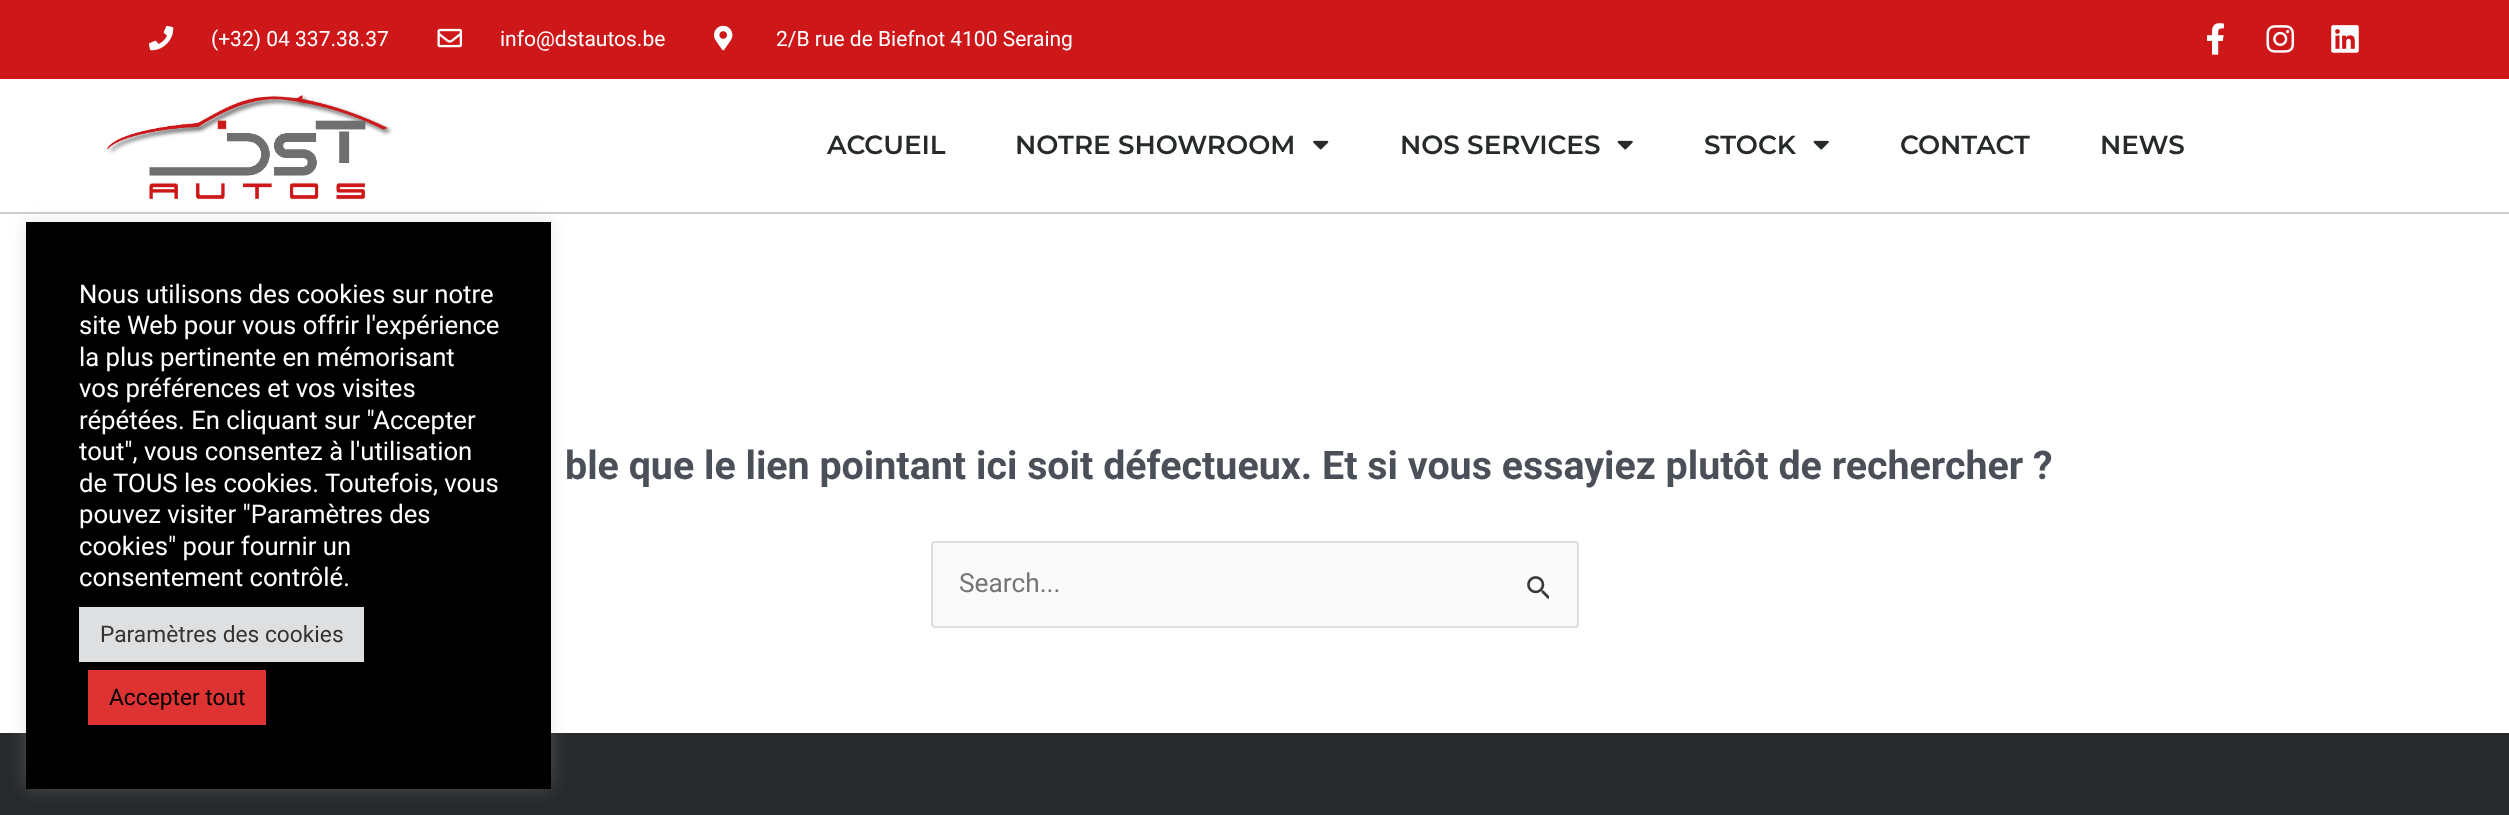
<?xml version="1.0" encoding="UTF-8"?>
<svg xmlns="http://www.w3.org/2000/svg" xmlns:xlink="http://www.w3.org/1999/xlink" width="2509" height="815">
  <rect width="100%" height="100%" fill="#ffffff" />
  <rect width="2509" height="79" fill="#cd1719" />
  <image x="149" y="25" width="25" height="26" xlink:href="image1.png" />
  <image x="437" y="28" width="25" height="20" xlink:href="image2.png" />
  <image x="714" y="25" width="19" height="26" xlink:href="image3.png" />
  <image x="2207" y="23" width="17" height="32" xlink:href="image4.png" />
  <image x="2266" y="25" width="29" height="28" xlink:href="image5.png" />
  <image x="2331" y="25" width="28" height="28" xlink:href="image6.png" />
  <path d="M 0 212 v 2 h 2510 v -133 v 131 z" fill="#cdcece" />
  <image x="107" y="95" width="286" height="105" xlink:href="image7.png" />
  <image x="1313" y="140" width="16" height="10" xlink:href="image8.png" />
  <image x="1617" y="140" width="16" height="10" xlink:href="image9.png" />
  <image x="1813" y="140" width="16" height="10" xlink:href="image9.png" />
  <rect x="932" y="542" width="646" height="85" rx="3" fill="#fafafa" stroke="#dddddd" stroke-width="2" />
  <image x="1527" y="576" width="22" height="23" xlink:href="image10.png" />
  <rect y="733" width="2509" height="82" fill="#262a2b" />
  <rect x="26" y="221" width="525" height="567" fill="#acabab" fill-opacity="0.3" filter="blur(9px)" />
  <rect x="26" y="222" width="525" height="567" fill="#000000" />
  <rect x="79" y="607" width="285" height="55" fill="#dedfe0" />
  <rect x="88" y="670" width="178" height="55" fill="#dd3333" />
  <text x="211" y="46" style="font-family: Roboto; font-size: 21px; fill: #ffffff">(+32) 04 337.38.37</text>
  <text x="500" y="46" style="font-family: Roboto; font-size: 21px; fill: #ffffff">info@dstautos.be</text>
  <text x="776" y="46" style="font-family: Roboto; font-size: 21px; fill: #ffffff">2/B rue de Biefnot 4100 Seraing</text>
  <text x="827" y="154" style="font-family: Montserrat; font-size: 26.25px; font-weight: 600; fill: #262a2b">ACCUEIL</text>
  <text x="1015" y="154" style="font-family: Montserrat; font-size: 26.25px; font-weight: 600; fill: #262a2b">NOTRE SHOWROOM</text>
  <text x="1400" y="154" style="font-family: Montserrat; font-size: 26.25px; font-weight: 600; fill: #262a2b">NOS SERVICES</text>
  <text x="1704" y="154" style="font-family: Montserrat; font-size: 26.25px; font-weight: 600; fill: #262a2b">STOCK</text>
  <text x="1900" y="154" style="font-family: Montserrat; font-size: 26.25px; font-weight: 600; fill: #262a2b">CONTACT</text>
  <text x="2100" y="154" style="font-family: Montserrat; font-size: 26.25px; font-weight: 600; fill: #262a2b">NEWS</text>
  <text x="565" y="479" style="font-family: Roboto; font-size: 39.4px; font-weight: bold; fill: #4b4f58">ble que le lien pointant ici soit défectueux. Et si vous essayiez plutôt de rechercher ?</text>
  <text x="959" y="592" style="font-family: Roboto; font-size: 26.25px; fill: #757575">Search...</text>
  <text x="79" y="303" style="font-family: Roboto; font-size: 25.7px; fill: #ffffff">Nous utilisons des cookies sur notre</text>
  <text x="79" y="334" style="font-family: Roboto; font-size: 25.7px; fill: #ffffff">site Web pour vous offrir l'expérience</text>
  <text x="79" y="366" style="font-family: Roboto; font-size: 25.7px; fill: #ffffff">la plus pertinente en mémorisant</text>
  <text x="79" y="397" style="font-family: Roboto; font-size: 25.7px; fill: #ffffff">vos préférences et vos visites</text>
  <text x="79" y="429" style="font-family: Roboto; font-size: 25.7px; fill: #ffffff">répétées. En cliquant sur "Accepter</text>
  <text x="79" y="460" style="font-family: Roboto; font-size: 25.7px; fill: #ffffff">tout", vous consentez à l'utilisation</text>
  <text x="79" y="492" style="font-family: Roboto; font-size: 25.7px; fill: #ffffff">de TOUS les cookies. Toutefois, vous</text>
  <text x="79" y="523" style="font-family: Roboto; font-size: 25.7px; fill: #ffffff">pouvez visiter "Paramètres des</text>
  <text x="79" y="555" style="font-family: Roboto; font-size: 25.7px; fill: #ffffff">cookies" pour fournir un</text>
  <text x="79" y="586" style="font-family: Roboto; font-size: 25.7px; fill: #ffffff">consentement contrôlé.</text>
  <text x="100" y="642" style="font-family: Roboto; font-size: 22.75px; fill: #333333">Paramètres des cookies</text>
  <text x="109" y="705" style="font-family: Roboto; font-size: 22.75px; fill: #000000">Accepter tout</text>
</svg>
